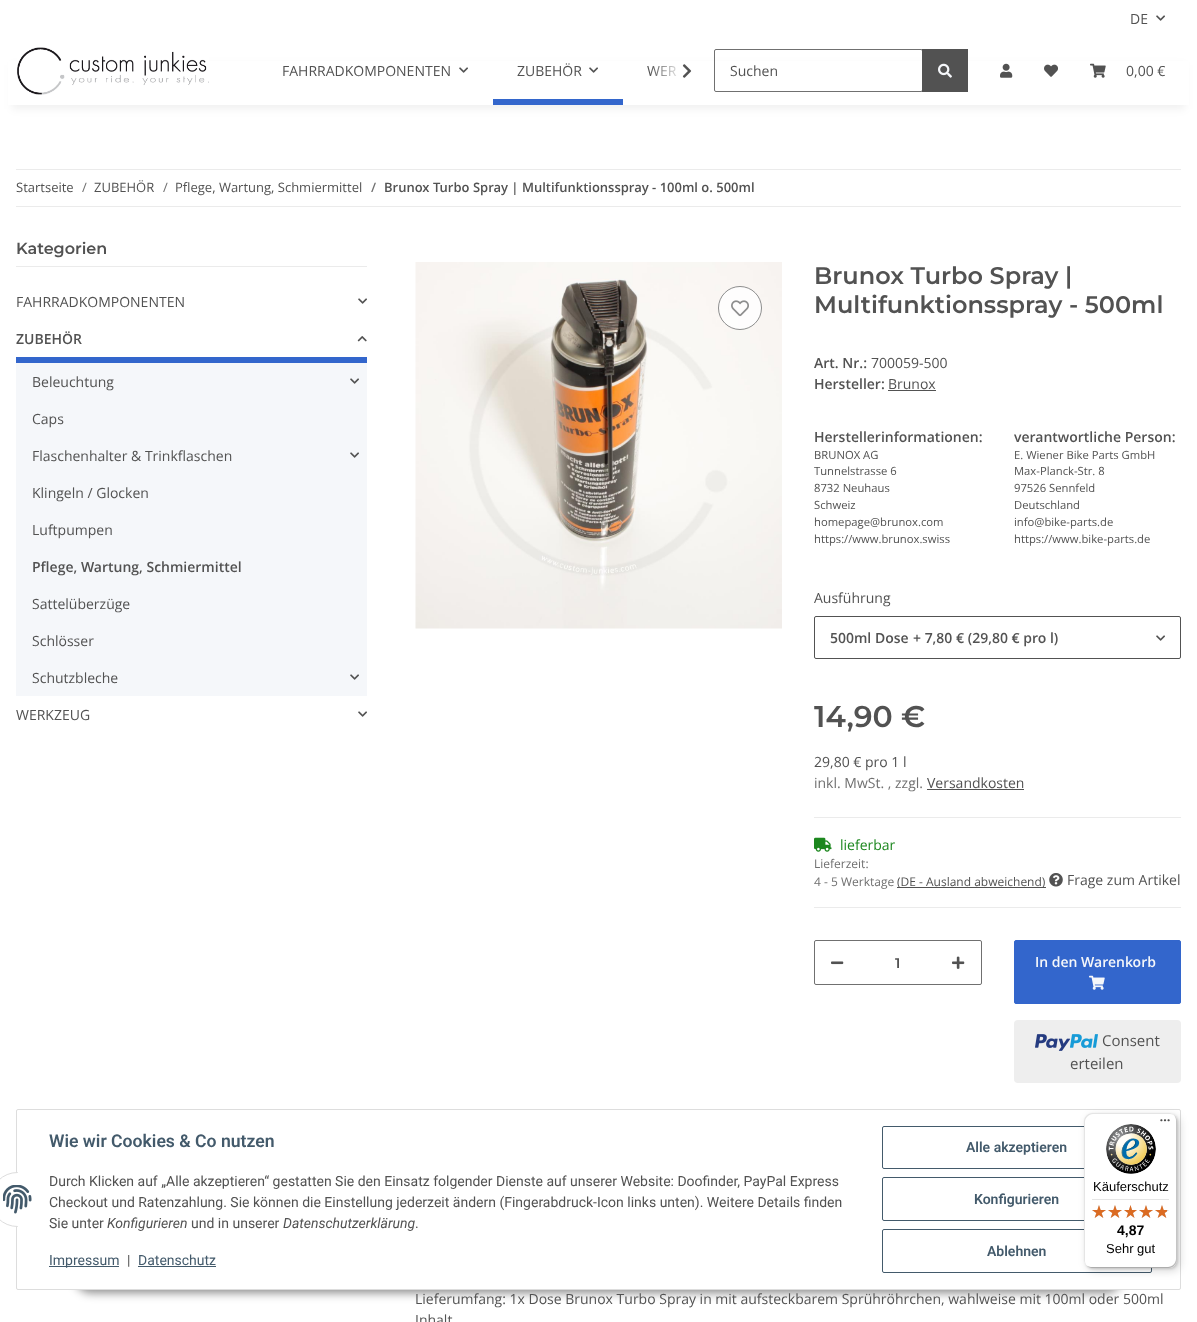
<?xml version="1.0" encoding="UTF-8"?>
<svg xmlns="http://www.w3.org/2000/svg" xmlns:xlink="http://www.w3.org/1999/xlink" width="1197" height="1322">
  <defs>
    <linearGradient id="g1" gradientUnits="userSpaceOnUse" x1="650" y1="71" x2="698" y2="71"><stop offset="0" stop-color="#ffffff" stop-opacity="0.01" /><stop offset="0.7" stop-color="#ffffff" /></linearGradient>
  </defs>
  <rect width="100%" height="100%" fill="#ffffff" />
  <image x="1156" y="15" width="9" height="6" xlink:href="image1.png" />
  <rect x="12" y="65" width="1173" height="44" fill="#000000" fill-opacity="0.06" filter="blur(4.5px)" />
  <rect x="8" y="61" width="1181" height="44" fill="#ffffff" />
  <image x="17" y="47" width="192" height="48" xlink:href="image2.png" />
  <image x="459" y="67" width="9" height="6" xlink:href="image1.png" />
  <image x="589" y="67" width="9" height="6" xlink:href="image1.png" />
  <rect x="493" y="99" width="130" height="6" fill="#3366cc" />
  <image x="682" y="64" width="10" height="14" xlink:href="image3.png" />
  <rect x="714.5" y="49.5" width="208" height="42" rx="1.5" fill="none" stroke="#707070" />
  <rect x="922" y="49" width="46" height="43" fill="#525252" />
  <image x="938" y="63" width="14" height="15" xlink:href="image4.png" />
  <image x="1000" y="63" width="13" height="15" xlink:href="image5.png" />
  <image x="1044" y="64" width="14" height="13" xlink:href="image6.png" />
  <image x="1090" y="63" width="16" height="15" xlink:href="image7.png" />
  <rect x="16" y="169" width="1165" height="1" fill="#ebebeb" />
  <rect x="16" y="206" width="1165" height="1" fill="#ebebeb" />
  <rect x="16" y="266" width="351" height="1" fill="#ebebeb" />
  <image x="358" y="298" width="9" height="6" xlink:href="image1.png" />
  <rect x="16" y="357" width="351" height="6" fill="#3366cc" />
  <image x="357" y="336" width="10" height="6" xlink:href="image8.png" />
  <rect x="16" y="363" width="351" height="333" fill="#f5f7fa" />
  <image x="350" y="378" width="9" height="6" xlink:href="image9.png" />
  <image x="350" y="452" width="9" height="6" xlink:href="image9.png" />
  <image x="350" y="674" width="9" height="6" xlink:href="image9.png" />
  <image x="358" y="711" width="9" height="6" xlink:href="image1.png" />
  <image x="415" y="262" width="367" height="367" xlink:href="image10.png" />
  <circle cx="740" cy="308" r="22" fill="#ffffff" fill-opacity="0.8" />
  <circle cx="740" cy="308" r="21.5" fill="none" stroke="#707070" stroke-opacity="0.8" />
  <image x="731" y="300" width="18" height="17" xlink:href="image11.png" />
  <rect x="888" y="390" width="48" height="1" fill="#525252" />
  <rect x="814.5" y="616.5" width="366" height="42" rx="1.5" fill="none" stroke="#525252" />
  <image x="1156" y="635" width="9" height="6" xlink:href="image1.png" />
  <rect x="927" y="789" width="97" height="1" fill="#525252" />
  <rect x="814" y="817" width="367" height="1" fill="#ebebeb" />
  <rect x="814" y="907" width="367" height="1" fill="#ebebeb" />
  <image x="814" y="837" width="18" height="15" xlink:href="image12.png" />
  <rect x="897" y="887" width="149" height="1" fill="#525252" />
  <image x="1049" y="873" width="14" height="14" xlink:href="image13.png" />
  <rect x="814.5" y="940.5" width="167" height="44" rx="1.5" fill="none" stroke="#707070" />
  <image x="831" y="961" width="13" height="4" xlink:href="image14.png" />
  <image x="952" y="956" width="13" height="13" xlink:href="image15.png" />
  <rect x="1014.5" y="940.5" width="166" height="63" rx="1.5" fill="#3366cc" stroke="#3366cc" />
  <image x="1089" y="975" width="16" height="15" xlink:href="image16.png" />
  <rect x="1014" y="1020" width="167" height="63" rx="4" fill="#eeeeee" />
  <image x="1035" y="1034" width="63" height="17" xlink:href="image17.png" />
  <rect x="75" y="1261" width="1047" height="32" rx="16" fill="#000000" fill-opacity="0.45" filter="blur(5px)" />
  <rect x="16.5" y="1109.5" width="1164" height="180" rx="1.5" fill="#ffffff" stroke="#dddddd" />
  <circle cx="17.5" cy="1199.5" r="27" fill="#ffffff" stroke="#dddddd" />
  <rect x="18" y="1172" width="27" height="55" fill="#ffffff" />
  <image x="3" y="1185" width="29" height="29" xlink:href="image18.png" />
  <rect x="49" y="1266" width="70" height="1" fill="#435a6b" />
  <rect x="138" y="1266" width="78" height="1" fill="#435a6b" />
  <rect x="882.5" y="1126.5" width="269" height="42" rx="1.5" fill="none" stroke="#435a6b" />
  <rect x="882.5" y="1177.5" width="269" height="43" rx="1.5" fill="none" stroke="#435a6b" />
  <rect x="882.5" y="1229.5" width="269" height="43" rx="1.5" fill="none" stroke="#435a6b" />
  <rect x="1087" y="1116" width="93" height="155" rx="8" fill="#000000" fill-opacity="0.15" filter="blur(4px)" />
  <rect x="1085" y="1114" width="93" height="155" rx="8" fill="#000000" fill-opacity="0.15" filter="blur(1px)" />
  <rect x="1084" y="1113" width="93" height="155" rx="8" fill="#ffffff" />
  <path d="M 1093 1114 h 77 c 2 0 4 1 6 3 c -2 -2 -4 -4 -7 -4 h -77 c -4 0 -8 4 -8 8 v 139 c 0 3 2 5 4 7 c -2 -2 -3 -4 -3 -6 v -139 c 0 -4 4 -8 8 -8 z" fill="#e5e5e5" />
  <path d="M 1085 1264 c 2 2 4 4 7 4 h 77 c 4 0 8 -4 8 -8 v -139 c 0 -3 -2 -5 -4 -7 c 2 2 3 4 3 6 v 139 c 0 4 -4 8 -8 8 h -77 c -2 0 -4 -1 -6 -3 z" fill="#cccccc" />
  <path d="M 1086 1265 c 1 2 4 3 6 3 h 77 c 4 0 8 -4 8 -8 v -139 c 0 -2 -1 -5 -3 -6 c 1 1 2 3 2 5 v 139 c 0 5 -3 8 -8 8 h -77 c -2 0 -4 -1 -5 -2 z" fill="#323232" fill-opacity="0.2" />
  <path d="M 1168 1268 h 1 c 4 0 8 -4 8 -8 v -139 c 0 -2 -1 -5 -3 -6 c 1 1 2 3 2 5 v 140 c 0 4 -3 8 -8 8 z" fill="#ffffff" fill-opacity="0.3" />
  <image x="1160" y="1119" width="10" height="3" xlink:href="image19.png" />
  <image x="1106" y="1124" width="50" height="50" xlink:href="image20.png" />
  <rect x="1092" y="1199" width="77" height="1" fill="#e5e5e5" />
  <image x="1092" y="1205" width="14" height="13" xlink:href="image21.png" />
  <image x="1108" y="1205" width="14" height="13" xlink:href="image21.png" />
  <image x="1124" y="1205" width="13" height="13" xlink:href="image22.png" />
  <image x="1139" y="1205" width="14" height="13" xlink:href="image21.png" />
  <image x="1155" y="1205" width="14" height="13" xlink:href="image21.png" />
  <image x="1092" y="1205" width="14" height="13" xlink:href="image23.png" />
  <image x="1108" y="1205" width="14" height="13" xlink:href="image23.png" />
  <image x="1124" y="1205" width="13" height="13" xlink:href="image24.png" />
  <image x="1139" y="1205" width="14" height="13" xlink:href="image23.png" />
  <image x="1155" y="1205" width="12" height="13" xlink:href="image25.png" />
  <text x="1130" y="24" style="font-family: Open Sans; font-size: 14px; fill: #525252">DE</text>
  <text x="282" y="76" style="font-family: Open Sans; font-size: 14px; fill: #525252">FAHRRADKOMPONENTEN</text>
  <text x="517" y="76" style="font-family: Open Sans; font-size: 14px; fill: #525252">ZUBEHÖR</text>
  <text x="647" y="76" style="font-family: Open Sans; font-size: 14px; fill: #525252">WER</text>
  <rect x="650" y="66" width="26" height="10" fill="url(#g1)" />
  <text x="730" y="76" style="font-family: Open Sans; font-size: 14px; fill: #525252">Suchen</text>
  <text x="1126" y="76" style="font-family: Open Sans; font-size: 14px; fill: #525252">0,00 €</text>
  <text x="16" y="192" style="font-family: Open Sans; font-size: 13px; fill: #525252">Startseite</text>
  <text x="82" y="192" style="font-family: Open Sans; font-size: 13px; fill: #707070">/</text>
  <text x="94" y="192" style="font-family: Open Sans; font-size: 13px; fill: #525252">ZUBEHÖR</text>
  <text x="163" y="192" style="font-family: Open Sans; font-size: 13px; fill: #707070">/</text>
  <text x="175" y="192" style="font-family: Open Sans; font-size: 13px; fill: #525252">Pflege, Wartung, Schmiermittel</text>
  <text x="371" y="192" style="font-family: Open Sans; font-size: 13px; font-weight: 600; fill: #707070">/</text>
  <text x="384" y="192" style="font-family: Open Sans; font-size: 13px; font-weight: 600; fill: #525252">Brunox Turbo Spray | Multifunktionsspray - 100ml o. 500ml</text>
  <text x="16" y="254" style="font-family: Montserrat; font-size: 16px; font-weight: 600; fill: #525252">Kategorien</text>
  <text x="16" y="307" style="font-family: Open Sans; font-size: 14px; fill: #525252">FAHRRADKOMPONENTEN</text>
  <text x="16" y="344" style="font-family: Open Sans; font-size: 14px; font-weight: 600; fill: #525252">ZUBEHÖR</text>
  <text x="32" y="387" style="font-family: Open Sans; font-size: 14px; fill: #525252">Beleuchtung</text>
  <text x="32" y="424" style="font-family: Open Sans; font-size: 14px; fill: #525252">Caps</text>
  <text x="32" y="461" style="font-family: Open Sans; font-size: 14px; fill: #525252">Flaschenhalter &amp; Trinkflaschen</text>
  <text x="32" y="498" style="font-family: Open Sans; font-size: 14px; fill: #525252">Klingeln / Glocken</text>
  <text x="32" y="535" style="font-family: Open Sans; font-size: 14px; fill: #525252">Luftpumpen</text>
  <text x="32" y="572" style="font-family: Open Sans; font-size: 14px; font-weight: 600; fill: #525252">Pflege, Wartung, Schmiermittel</text>
  <text x="32" y="609" style="font-family: Open Sans; font-size: 14px; fill: #525252">Sattelüberzüge</text>
  <text x="32" y="646" style="font-family: Open Sans; font-size: 14px; fill: #525252">Schlösser</text>
  <text x="32" y="683" style="font-family: Open Sans; font-size: 14px; fill: #525252">Schutzbleche</text>
  <text x="16" y="720" style="font-family: Open Sans; font-size: 14px; fill: #525252">WERKZEUG</text>
  <text x="814" y="284" style="font-family: Montserrat; font-size: 24px; font-weight: 600; fill: #525252">Brunox Turbo Spray |</text>
  <text x="814" y="313" style="font-family: Montserrat; font-size: 24px; font-weight: 600; fill: #525252">Multifunktionsspray - 500ml</text>
  <text x="814" y="368" style="font-family: Open Sans; font-size: 14px; font-weight: 600; fill: #525252">Art. Nr.:</text>
  <text x="871" y="368" style="font-family: Open Sans; font-size: 14px; fill: #525252">700059-500</text>
  <text x="814" y="389" style="font-family: Open Sans; font-size: 14px; font-weight: 600; fill: #525252">Hersteller:</text>
  <text x="888" y="389" style="font-family: Open Sans; font-size: 14px; fill: #525252">Brunox</text>
  <text x="814" y="442" style="font-family: Open Sans; font-size: 14px; font-weight: 600; fill: #525252">Herstellerinformationen:</text>
  <text x="814" y="459" style="font-family: Open Sans; font-size: 11.25px; fill: #525252">BRUNOX AG</text>
  <text x="814" y="475" style="font-family: Open Sans; font-size: 11.25px; fill: #525252">Tunnelstrasse 6</text>
  <text x="814" y="492" style="font-family: Open Sans; font-size: 11.25px; fill: #525252">8732 Neuhaus</text>
  <text x="814" y="509" style="font-family: Open Sans; font-size: 11.25px; fill: #525252">Schweiz</text>
  <text x="814" y="526" style="font-family: Open Sans; font-size: 11.25px; fill: #525252">homepage@brunox.com</text>
  <text x="814" y="543" style="font-family: Open Sans; font-size: 11.25px; fill: #525252">https://www.brunox.swiss</text>
  <text x="1014" y="442" style="font-family: Open Sans; font-size: 14px; font-weight: 600; fill: #525252">verantwortliche Person:</text>
  <text x="1014" y="459" style="font-family: Open Sans; font-size: 11.25px; fill: #525252">E. Wiener Bike Parts GmbH</text>
  <text x="1014" y="475" style="font-family: Open Sans; font-size: 11.25px; fill: #525252">Max-Planck-Str. 8</text>
  <text x="1014" y="492" style="font-family: Open Sans; font-size: 11.25px; fill: #525252">97526 Sennfeld</text>
  <text x="1014" y="509" style="font-family: Open Sans; font-size: 11.25px; fill: #525252">Deutschland</text>
  <text x="1014" y="526" style="font-family: Open Sans; font-size: 11.25px; fill: #525252">info@bike-parts.de</text>
  <text x="1014" y="543" style="font-family: Open Sans; font-size: 11.25px; fill: #525252">https://www.bike-parts.de</text>
  <text x="814" y="603" style="font-family: Open Sans; font-size: 14px; fill: #525252">Ausführung</text>
  <text x="830" y="643" style="font-family: Open Sans; font-size: 14px; font-weight: 600; fill: #525252">500ml Dose</text>
  <text x="913" y="643" style="font-family: Open Sans; font-size: 14px; font-weight: 600; fill: #525252">+ 7,80 € (29,80 € pro l)</text>
  <text x="814" y="727" style="font-family: Montserrat; font-size: 30px; font-weight: 600; fill: #525252">14,90 €</text>
  <text x="814" y="767" style="font-family: Open Sans; font-size: 14px; fill: #525252">29,80 € pro 1 l</text>
  <text x="814" y="788" style="font-family: Open Sans; font-size: 14px; fill: #707070">inkl. MwSt. , zzgl.</text>
  <text x="927" y="788" style="font-family: Open Sans; font-size: 14px; fill: #525252">Versandkosten</text>
  <text x="840" y="850" style="font-family: Open Sans; font-size: 14px; fill: #1c871e">lieferbar</text>
  <text x="814" y="868" style="font-family: Open Sans; font-size: 12px; fill: #707070">Lieferzeit:</text>
  <text x="814" y="886" style="font-family: Open Sans; font-size: 12px; fill: #707070">4 - 5 Werktage</text>
  <text x="897" y="886" style="font-family: Open Sans; font-size: 12px; fill: #525252">(DE - Ausland abweichend)</text>
  <text x="1067" y="885" style="font-family: Open Sans; font-size: 14px; fill: #525252">Frage zum Artikel</text>
  <text x="895" y="968" style="font-family: Montserrat; font-size: 14px; font-weight: 600; fill: #525252">1</text>
  <text x="1035" y="967" style="font-family: Open Sans; font-size: 14px; font-weight: 600; fill: #f5f7fa">In den Warenkorb</text>
  <text x="1102" y="1046" style="font-family: Open Sans; font-size: 15px; fill: #525252">Consent</text>
  <text x="1070" y="1069" style="font-family: Open Sans; font-size: 15px; fill: #525252">erteilen</text>
  <text x="415" y="1304" style="font-family: Open Sans; font-size: 14px; fill: #525252">Lieferumfang: 1x Dose Brunox Turbo Spray in mit aufsteckbarem Sprühröhrchen, wahlweise mit 100ml oder 500ml</text>
  <text x="415" y="1325" style="font-family: Open Sans; font-size: 14px; fill: #525252">Inhalt</text>
  <text x="49" y="1147" style="font-family: Roboto; font-size: 17.6px; font-weight: 600; fill: #435a6b">Wie wir Cookies &amp; Co nutzen</text>
  <text x="49" y="1186" style="font-family: Roboto; font-size: 14px; fill: #525252">Durch Klicken auf „Alle akzeptieren“ gestatten Sie den Einsatz folgender Dienste auf unserer Website: Doofinder, PayPal Express</text>
  <text x="49" y="1207" style="font-family: Roboto; font-size: 14px; fill: #525252">Checkout und Ratenzahlung. Sie können die Einstellung jederzeit ändern (Fingerabdruck-Icon links unten). Weitere Details finden</text>
  <text x="49" y="1228" style="font-family: Roboto; font-size: 14px; fill: #525252">Sie unter</text>
  <text x="107" y="1228" style="font-family: Roboto; font-size: 14px; font-style: italic; fill: #525252">Konfigurieren</text>
  <text x="191" y="1228" style="font-family: Roboto; font-size: 14px; fill: #525252">und in unserer</text>
  <text x="283" y="1228" style="font-family: Roboto; font-size: 14px; font-style: italic; fill: #525252">Datenschutzerklärung</text>
  <text x="415" y="1228" style="font-family: Roboto; font-size: 14px; fill: #525252">.</text>
  <text x="49" y="1265" style="font-family: Roboto; font-size: 14px; fill: #435a6b">Impressum</text>
  <text x="127" y="1265" style="font-family: Roboto; font-size: 14px; fill: #525252">|</text>
  <text x="138" y="1265" style="font-family: Roboto; font-size: 14px; fill: #435a6b">Datenschutz</text>
  <text x="966" y="1152" style="font-family: Roboto; font-size: 14px; font-weight: 600; fill: #435a6b">Alle akzeptieren</text>
  <text x="974" y="1204" style="font-family: Roboto; font-size: 14px; font-weight: 600; fill: #435a6b">Konfigurieren</text>
  <text x="987" y="1256" style="font-family: Roboto; font-size: 14px; font-weight: 600; fill: #435a6b">Ablehnen</text>
  <text x="1093" y="1191" style="font-family: Liberation Sans; font-size: 13px; fill: #000000">Käuferschutz</text>
  <text x="1117" y="1235" style="font-family: Liberation Sans; font-size: 14px; font-weight: bold; fill: #000000">4,87</text>
  <text x="1106" y="1253" style="font-family: Liberation Sans; font-size: 13px; fill: #000000">Sehr gut</text>
</svg>
